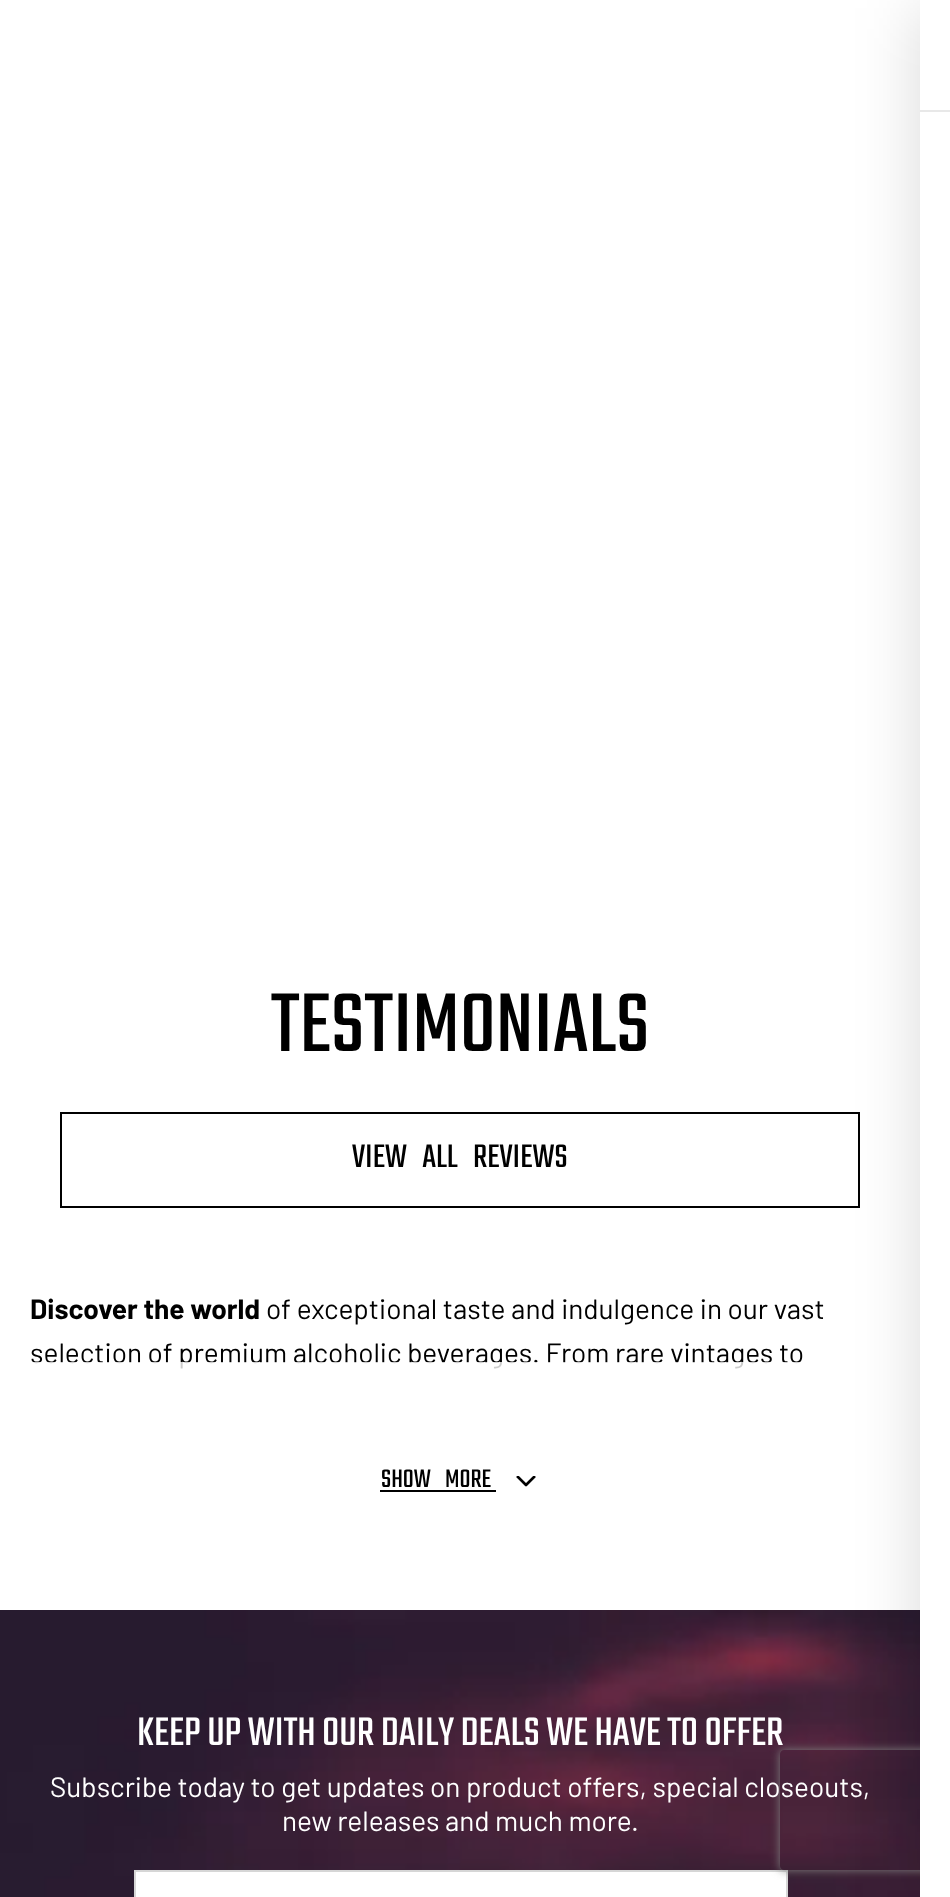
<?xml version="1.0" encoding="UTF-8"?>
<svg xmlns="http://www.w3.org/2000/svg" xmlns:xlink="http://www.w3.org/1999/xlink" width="950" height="1897">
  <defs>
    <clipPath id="clip1"><rect x="516" y="1476" width="24" height="12" /></clipPath>
    <clipPath id="clip2"><path d="M 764 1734 h 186 v 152 h -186 z m 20 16 h 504 c 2 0 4 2 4 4 v 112 c 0 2 -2 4 -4 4 h -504 c -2 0 -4 -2 -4 -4 v -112 c 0 -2 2 -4 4 -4 z" clip-rule="evenodd" /></clipPath>
  </defs>
  <rect width="100%" height="100%" fill="#ffffff" />
  <rect x="61" y="1113" width="798" height="94" fill="none" stroke="#000000" stroke-width="2" />
  <rect x="380" y="1490" width="116" height="2" fill="#000000" />
  <g clip-path="url(#clip1)">
    <path d="M 534 1477 l -8 8 l -8 -8" fill="none" stroke="#000000" stroke-width="2.7" stroke-linecap="square" stroke-linejoin="round" />
  </g>
  <image x="0" y="1610" width="920" height="287" xlink:href="image1.png" />
  <rect x="920" y="8" width="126" height="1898" fill="#000000" fill-opacity="0.15" filter="blur(32px)" />
  <rect x="135" y="1871" width="652" height="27" fill="#ffffff" stroke="#d6d6d6" stroke-width="2" />
  <g clip-path="url(#clip2)">
    <rect x="780" y="1750" width="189" height="120" rx="4" fill="#808080" filter="blur(5px)" />
  </g>
  <rect x="920" width="30" height="1897" fill="#ffffff" />
  <rect x="920" y="110" width="30" height="2" fill="#e8e8e8" />
  <text x="271" y="1051" style="font-family: Teko; font-size: 92px; fill: #000000">TESTIMONIALS</text>
  <text x="352" y="1167" word-spacing="10" style="font-family: Teko; font-size: 36px; fill: #000000">VIEW ALL REVIEWS</text>
  <text x="30" y="1319" style="font-family: Barlow; font-size: 28px; font-weight: bold; fill: #000000">Discover the world</text>
  <text x="266" y="1319" style="font-family: Barlow; font-size: 28px; fill: #000000">of exceptional taste and indulgence in our vast</text>
  <text x="30" y="1363" style="font-family: Barlow; font-size: 28px; fill: #000000">selection of premium alcoholic beverages. From rare vintages to</text>
  <rect x="33" y="1362" width="767" height="7" fill="#ffffff" fill-opacity="0.8" />
  <text x="381" y="1487" word-spacing="10" style="font-family: Teko; font-size: 28px; fill: #000000">SHOW MORE</text>
  <text x="137" y="1745" style="font-family: Teko; font-size: 44px; fill: #ffffff">KEEP UP WITH OUR DAILY DEALS WE HAVE TO OFFER</text>
  <text x="50" y="1797" style="font-family: Barlow; font-size: 28px; fill: #ffffff">Subscribe today to get updates on product offers, special closeouts,</text>
  <text x="282" y="1831" style="font-family: Barlow; font-size: 28px; fill: #ffffff">new releases and much more.</text>
</svg>
